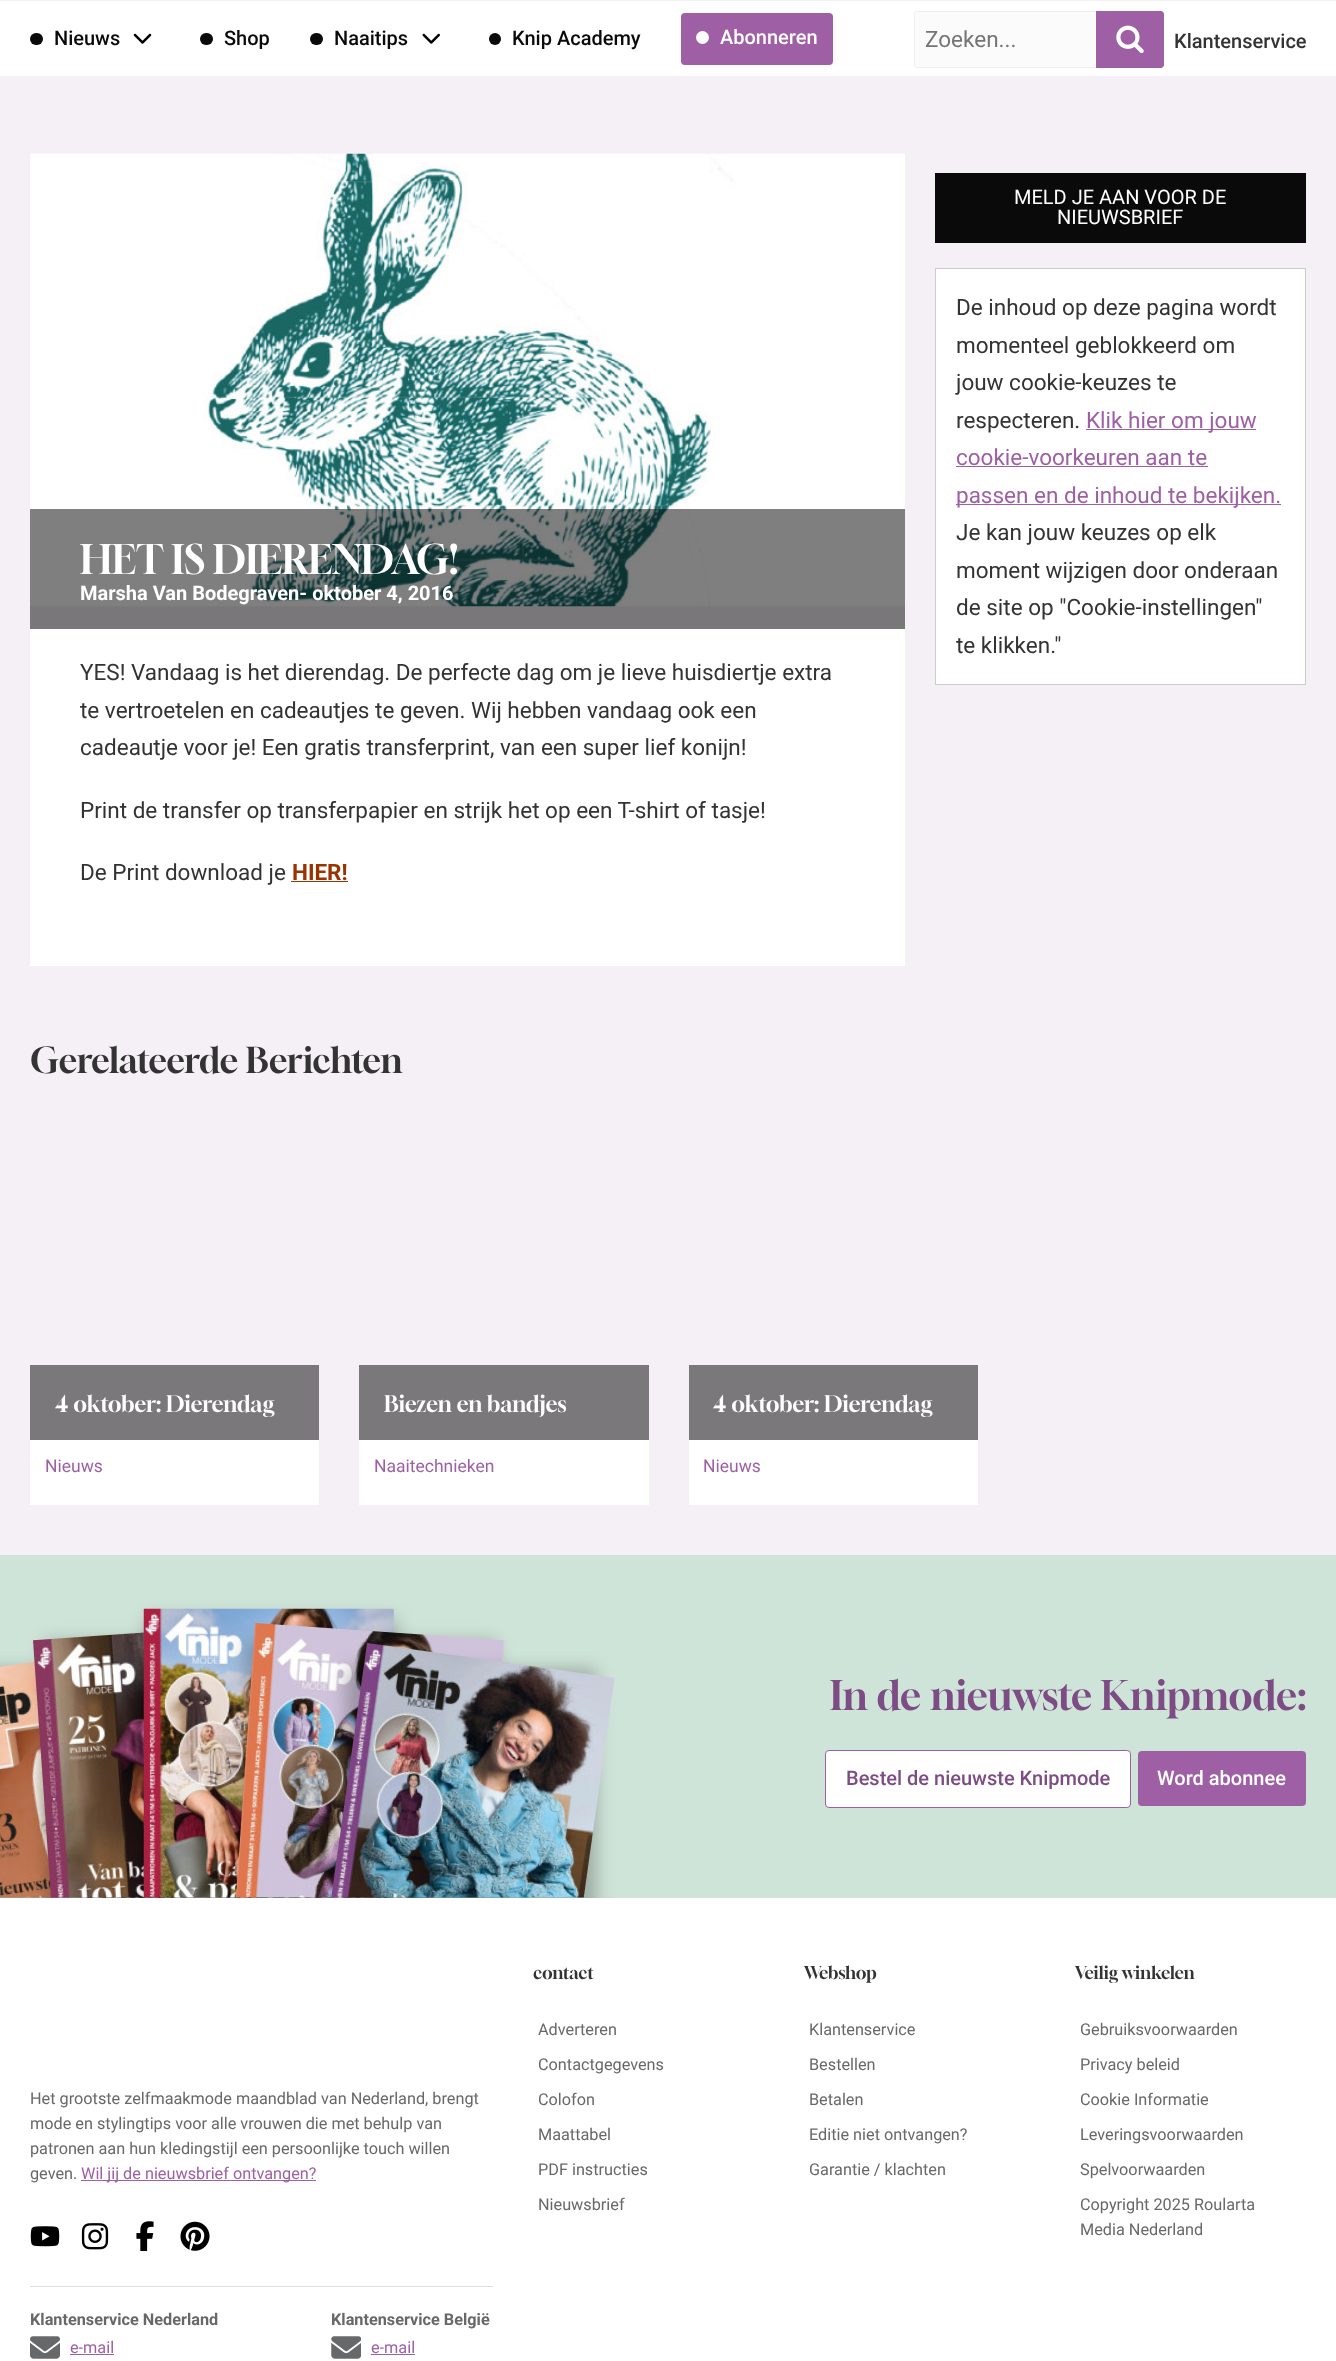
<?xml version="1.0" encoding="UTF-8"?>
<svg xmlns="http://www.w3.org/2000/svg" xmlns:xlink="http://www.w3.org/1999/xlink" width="1336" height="2361">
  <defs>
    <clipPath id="clip1"><rect x="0" y="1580" width="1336" height="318" /></clipPath>
  </defs>
  <rect width="100%" height="100%" fill="#f5eff6" />
  <rect y="1" width="1336" height="75" fill="#ffffff" />
  <rect width="1336" height="1" fill="#f2f2f2" />
  <rect x="30" y="33" width="13" height="12" rx="6" fill="#0a0a0a" />
  <image x="133" y="33" width="19" height="11" xlink:href="image1.png" />
  <rect x="200" y="33" width="13" height="12" rx="6" fill="#0a0a0a" />
  <rect x="310" y="33" width="13" height="12" rx="6" fill="#0a0a0a" />
  <image x="422" y="33" width="18" height="11" xlink:href="image2.png" />
  <circle cx="495" cy="39" r="6" fill="#0a0a0a" />
  <rect x="681" y="13" width="152" height="52" rx="4" fill="#9e5fa5" />
  <circle cx="702.5" cy="37.5" r="6.5" fill="#ffffff" />
  <rect x="914.5" y="11.5" width="249" height="56" rx="2" fill="#fbfbfb" stroke="#eeeeee" />
  <rect x="1096" y="11" width="68" height="57" rx="4" fill="#9e5fa5" />
  <path d="M 1096 11 h 63 c 3 0 5 2 5 5 v 47 c 0 3 -2 5 -5 5 h -63 z" fill="#9e5fa5" />
  <image x="1116" y="25" width="28" height="29" xlink:href="image3.png" />
  <rect x="935" y="173" width="371" height="70" fill="#0a0a0a" />
  <rect x="935.5" y="268.5" width="370" height="416" fill="#ffffff" stroke="#cccccc" />
  <rect x="1086" y="429" width="170" height="1" fill="#9e5fa5" />
  <rect x="956" y="466" width="252" height="1" fill="#9e5fa5" />
  <rect x="956" y="504" width="325" height="1" fill="#9e5fa5" />
  <image x="30" y="153" width="875" height="454" xlink:href="image4.png" />
  <rect x="30" y="509" width="875" height="120" fill="#000000" fill-opacity="0.5" />
  <rect x="30" y="629" width="875" height="337" fill="#ffffff" />
  <rect x="291" y="881" width="57" height="1" fill="#993300" />
  <rect x="30" y="1365" width="289" height="75" fill="#7b787b" />
  <rect x="30" y="1440" width="289" height="65" fill="#ffffff" />
  <rect x="359" y="1365" width="290" height="75" fill="#7b787b" />
  <rect x="359" y="1440" width="290" height="65" fill="#ffffff" />
  <rect x="689" y="1365" width="289" height="75" fill="#7b787b" />
  <rect x="689" y="1440" width="289" height="65" fill="#ffffff" />
  <rect y="1898" width="1336" height="463" fill="#ffffff" />
  <rect y="1555" width="1336" height="343" fill="#cfe4d8" />
  <g clip-path="url(#clip1)">
    <rect x="-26" y="1669" width="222" height="317" fill="#000000" fill-opacity="0.25" filter="blur(8.5px)" />
  </g>
  <image x="0" y="1661" width="207" height="237" xlink:href="image8.png" />
  <g clip-path="url(#clip1)">
    <rect x="46" y="1641" width="250" height="318" fill="#000000" fill-opacity="0.25" filter="blur(8.5px)" />
  </g>
  <image x="33" y="1632" width="269" height="266" xlink:href="image6.png" />
  <g clip-path="url(#clip1)">
    <rect x="146" y="1619" width="250" height="317" fill="#000000" fill-opacity="0.25" filter="blur(9px)" />
  </g>
  <image x="143" y="1608" width="251" height="290" xlink:href="image5.png" />
  <g clip-path="url(#clip1)">
    <rect x="246" y="1641" width="250" height="318" fill="#000000" fill-opacity="0.25" filter="blur(8.5px)" />
  </g>
  <image x="235" y="1623" width="270" height="275" xlink:href="image7.png" />
  <g clip-path="url(#clip1)">
    <rect x="346" y="1669" width="250" height="317" fill="#000000" fill-opacity="0.25" filter="blur(8.5px)" />
  </g>
  <image x="331" y="1643" width="284" height="255" xlink:href="image9.png" />
  <rect x="825.5" y="1750.5" width="305" height="57" rx="3.5" fill="#ffffff" stroke="#9e5fa5" />
  <rect x="1138" y="1751" width="168" height="55" rx="4" fill="#9e5fa5" />
  <rect x="81" y="2180" width="235" height="1" fill="#9e5fa5" />
  <image x="30" y="2226" width="30" height="21" xlink:href="image10.png" />
  <image x="81" y="2223" width="28" height="27" xlink:href="image11.png" />
  <image x="136" y="2221" width="18" height="30" xlink:href="image12.png" />
  <image x="180" y="2221" width="30" height="30" xlink:href="image13.png" />
  <rect x="30" y="2286" width="463" height="1" fill="#dddddd" />
  <image x="30" y="2336" width="30" height="23" xlink:href="image14.png" />
  <rect x="70" y="2354" width="44" height="1" fill="#9e5fa5" />
  <image x="331" y="2336" width="30" height="23" xlink:href="image15.png" />
  <rect x="371" y="2354" width="44" height="1" fill="#9e5fa5" />
  <text x="54" y="45" style="font-family: Roboto; font-size: 20px; font-weight: 500; fill: #0a0a0a">Nieuws</text>
  <text x="224" y="45" style="font-family: Roboto; font-size: 20px; font-weight: 500; fill: #0a0a0a">Shop</text>
  <text x="334" y="45" style="font-family: Roboto; font-size: 20px; font-weight: 500; fill: #0a0a0a">Naaitips</text>
  <text x="512" y="45" style="font-family: Roboto; font-size: 20px; font-weight: 500; fill: #0a0a0a">Knip Academy</text>
  <text x="720" y="44" style="font-family: Roboto; font-size: 20px; font-weight: 500; fill: #ffffff">Abonneren</text>
  <text x="925" y="47" style="font-family: Roboto; font-size: 22.5px; fill: #757575">Zoeken...</text>
  <text x="1174" y="48" style="font-family: Roboto; font-size: 20px; font-weight: 500; fill: #333333">Klantenservice</text>
  <text x="1014" y="204" style="font-family: Roboto; font-size: 20px; fill: #ffffff">MELD JE AAN VOOR DE</text>
  <text x="1057" y="224" style="font-family: Roboto; font-size: 20px; fill: #ffffff">NIEUWSBRIEF</text>
  <text x="956" y="315" style="font-family: Roboto; font-size: 22.5px; fill: #333333">De inhoud op deze pagina wordt</text>
  <text x="956" y="353" style="font-family: Roboto; font-size: 22.5px; fill: #333333">momenteel geblokkeerd om</text>
  <text x="956" y="390" style="font-family: Roboto; font-size: 22.5px; fill: #333333">jouw cookie-keuzes te</text>
  <text x="956" y="428" style="font-family: Roboto; font-size: 22.5px; fill: #333333">respecteren.</text>
  <text x="1086" y="428" style="font-family: Roboto; font-size: 22.5px; fill: #9e5fa5">Klik hier om jouw</text>
  <text x="956" y="465" style="font-family: Roboto; font-size: 22.5px; fill: #9e5fa5">cookie-voorkeuren aan te</text>
  <text x="956" y="503" style="font-family: Roboto; font-size: 22.5px; fill: #9e5fa5">passen en de inhoud te bekijken.</text>
  <text x="956" y="540" style="font-family: Roboto; font-size: 22.5px; fill: #333333">Je kan jouw keuzes op elk</text>
  <text x="956" y="578" style="font-family: Roboto; font-size: 22.5px; fill: #333333">moment wijzigen door onderaan</text>
  <text x="956" y="615" style="font-family: Roboto; font-size: 22.5px; fill: #333333">de site op "Cookie-instellingen"</text>
  <text x="956" y="653" style="font-family: Roboto; font-size: 22.5px; fill: #333333">te klikken."</text>
  <text x="80" y="574" style="font-family: Gloock; font-size: 40px; fill: #ffffff">HET IS DIERENDAG!</text>
  <text x="80" y="600" style="font-family: Roboto; font-size: 20px; font-weight: bold; fill: #ffffff">Marsha Van Bodegraven- oktober 4, 2016</text>
  <text x="80" y="680" style="font-family: Roboto; font-size: 22.5px; fill: #333333">YES! Vandaag is het dierendag. De perfecte dag om je lieve huisdiertje extra</text>
  <text x="80" y="718" style="font-family: Roboto; font-size: 22.5px; fill: #333333">te vertroetelen en cadeautjes te geven. Wij hebben vandaag ook een</text>
  <text x="80" y="755" style="font-family: Roboto; font-size: 22.5px; fill: #333333">cadeautje voor je! Een gratis transferprint, van een super lief konijn!</text>
  <text x="80" y="818" style="font-family: Roboto; font-size: 22.5px; fill: #333333">Print de transfer op transferpapier en strijk het op een T-shirt of tasje!</text>
  <text x="80" y="880" style="font-family: Roboto; font-size: 22.5px; fill: #333333">De Print download je</text>
  <text x="292" y="880" style="font-family: Roboto; font-size: 22.5px; font-weight: bold; fill: #993300">HIER!</text>
  <text x="30" y="1073" style="font-family: Gloock; font-size: 35px; fill: #333333">Gerelateerde Berichten</text>
  <text x="55" y="1412" style="font-family: Gloock; font-size: 22.5px; fill: #ffffff">4 oktober: Dierendag</text>
  <text x="45" y="1472" style="font-family: Roboto; font-size: 17.5px; fill: #9e5fa5">Nieuws</text>
  <text x="384" y="1412" style="font-family: Gloock; font-size: 22.5px; fill: #ffffff">Biezen en bandjes</text>
  <text x="374" y="1472" style="font-family: Roboto; font-size: 17.5px; fill: #9e5fa5">Naaitechnieken</text>
  <text x="713" y="1412" style="font-family: Gloock; font-size: 22.5px; fill: #ffffff">4 oktober: Dierendag</text>
  <text x="703" y="1472" style="font-family: Roboto; font-size: 17.5px; fill: #9e5fa5">Nieuws</text>
  <text x="830" y="1710" style="font-family: Gloock; font-size: 40px; fill: #7e4c84">In de nieuwste Knipmode:</text>
  <text x="846" y="1785" style="font-family: Roboto; font-size: 20px; font-weight: 500; fill: #7e4c84">Bestel de nieuwste Knipmode</text>
  <text x="1157" y="1785" style="font-family: Roboto; font-size: 20px; font-weight: 500; fill: #ffffff">Word abonnee</text>
  <text x="30" y="2104" style="font-family: Roboto; font-size: 16.25px; fill: #67686a">Het grootste zelfmaakmode maandblad van Nederland, brengt</text>
  <text x="30" y="2129" style="font-family: Roboto; font-size: 16.25px; fill: #67686a">mode en stylingtips voor alle vrouwen die met behulp van</text>
  <text x="30" y="2154" style="font-family: Roboto; font-size: 16.25px; fill: #67686a">patronen aan hun kledingstijl een persoonlijke touch willen</text>
  <text x="30" y="2179" style="font-family: Roboto; font-size: 16.25px; fill: #67686a">geven.</text>
  <text x="81" y="2179" style="font-family: Roboto; font-size: 16.25px; fill: #9e5fa5">Wil jij de nieuwsbrief ontvangen?</text>
  <text x="30" y="2325" style="font-family: Roboto; font-size: 16.25px; font-weight: bold; fill: #67686a">Klantenservice Nederland</text>
  <text x="70" y="2353" style="font-family: Roboto; font-size: 16.25px; fill: #9e5fa5">e-mail</text>
  <text x="331" y="2325" style="font-family: Roboto; font-size: 16.25px; font-weight: bold; fill: #67686a">Klantenservice België</text>
  <text x="371" y="2353" style="font-family: Roboto; font-size: 16.25px; fill: #9e5fa5">e-mail</text>
  <text x="533" y="1979" style="font-family: Gloock; font-size: 17.5px; fill: #333333">contact</text>
  <text x="538" y="2035" style="font-family: Roboto; font-size: 16.25px; fill: #67686a">Adverteren</text>
  <text x="538" y="2070" style="font-family: Roboto; font-size: 16.25px; fill: #67686a">Contactgegevens</text>
  <text x="538" y="2105" style="font-family: Roboto; font-size: 16.25px; fill: #67686a">Colofon</text>
  <text x="538" y="2140" style="font-family: Roboto; font-size: 16.25px; fill: #67686a">Maattabel</text>
  <text x="538" y="2175" style="font-family: Roboto; font-size: 16.25px; fill: #67686a">PDF instructies</text>
  <text x="538" y="2210" style="font-family: Roboto; font-size: 16.25px; fill: #67686a">Nieuwsbrief</text>
  <text x="804" y="1979" style="font-family: Gloock; font-size: 17.5px; fill: #333333">Webshop</text>
  <text x="809" y="2035" style="font-family: Roboto; font-size: 16.25px; fill: #67686a">Klantenservice</text>
  <text x="809" y="2070" style="font-family: Roboto; font-size: 16.25px; fill: #67686a">Bestellen</text>
  <text x="809" y="2105" style="font-family: Roboto; font-size: 16.25px; fill: #67686a">Betalen</text>
  <text x="809" y="2140" style="font-family: Roboto; font-size: 16.25px; fill: #67686a">Editie niet ontvangen?</text>
  <text x="809" y="2175" style="font-family: Roboto; font-size: 16.25px; fill: #67686a">Garantie / klachten</text>
  <text x="1075" y="1979" style="font-family: Gloock; font-size: 17.5px; fill: #333333">Veilig winkelen</text>
  <text x="1080" y="2035" style="font-family: Roboto; font-size: 16.25px; fill: #67686a">Gebruiksvoorwaarden</text>
  <text x="1080" y="2070" style="font-family: Roboto; font-size: 16.25px; fill: #67686a">Privacy beleid</text>
  <text x="1080" y="2105" style="font-family: Roboto; font-size: 16.25px; fill: #67686a">Cookie Informatie</text>
  <text x="1080" y="2140" style="font-family: Roboto; font-size: 16.25px; fill: #67686a">Leveringsvoorwaarden</text>
  <text x="1080" y="2175" style="font-family: Roboto; font-size: 16.25px; fill: #67686a">Spelvoorwaarden</text>
  <text x="1080" y="2210" style="font-family: Roboto; font-size: 16.25px; fill: #67686a">Copyright 2025 Roularta</text>
  <text x="1080" y="2235" style="font-family: Roboto; font-size: 16.25px; fill: #67686a">Media Nederland</text>
</svg>
